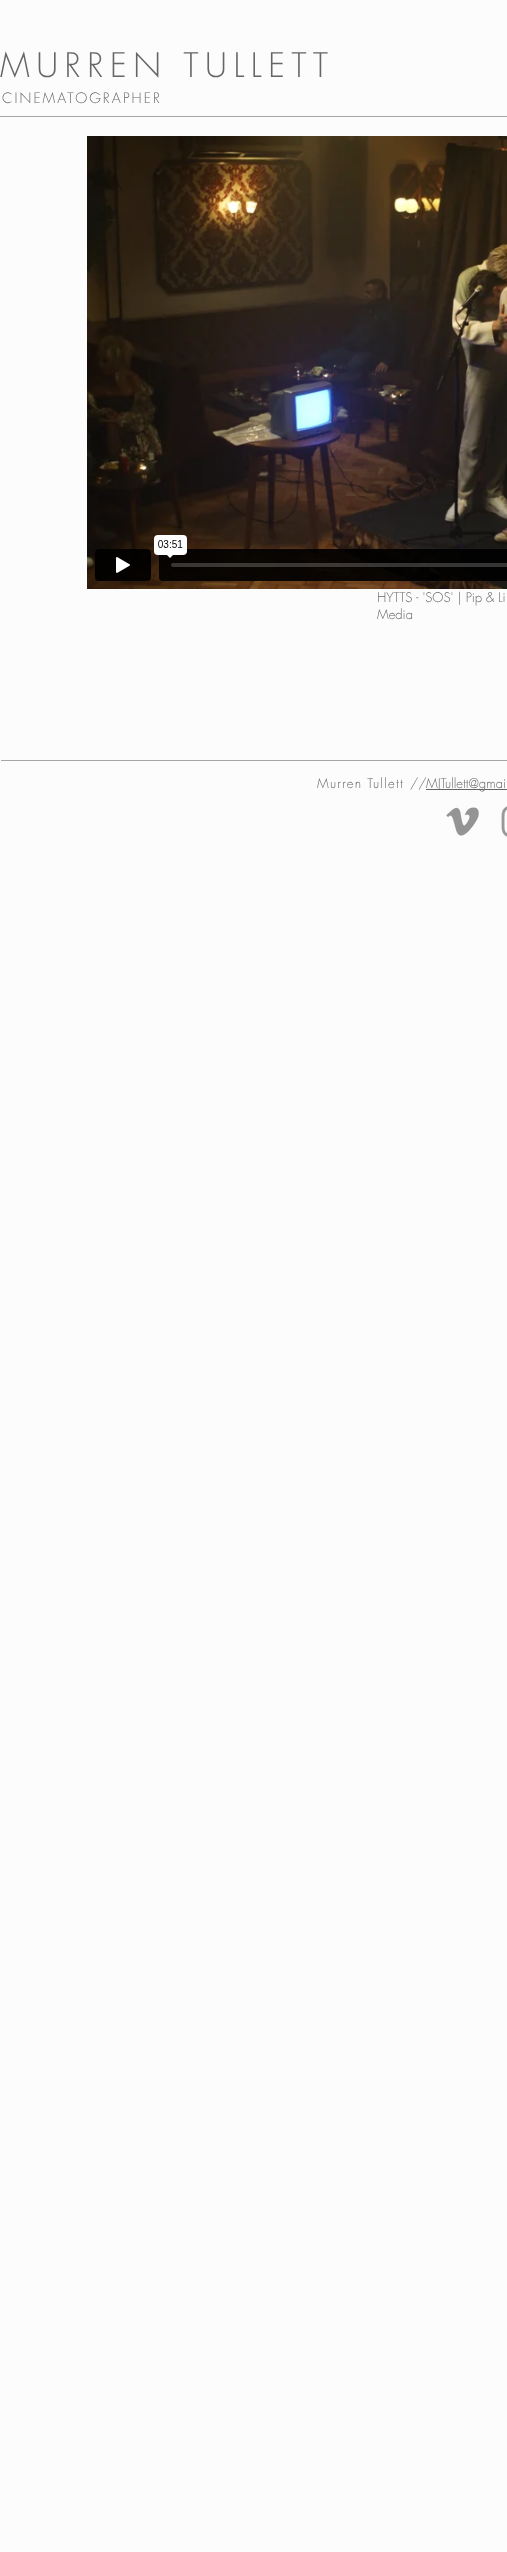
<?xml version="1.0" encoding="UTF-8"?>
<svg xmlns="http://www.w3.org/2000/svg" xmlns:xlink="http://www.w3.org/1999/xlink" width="507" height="2552">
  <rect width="100%" height="100%" fill="#fcfcfc" />
  <rect y="116" width="507" height="1" fill="#a6a6a6" />
  <image x="87" y="136" width="420" height="453" xlink:href="image1.png" />
  <rect x="1" y="760" width="506" height="1" fill="#a6a6a6" />
  <rect x="426" y="789" width="81" height="1" fill="#666666" />
  <image x="446" y="807" width="33" height="29" xlink:href="image2.png" />
  <image x="501" y="806" width="6" height="31" xlink:href="image3.png" />
  <text x="0" y="77" style="font-family: futura; font-size: 33px; font-weight: 300; letter-spacing: 6.6px; fill: #666666">MURREN TULLETT</text>
  <text x="2" y="103" style="font-family: futura; font-size: 14px; font-weight: 300; letter-spacing: 2.1px; fill: #666666">CINEMATOGRAPHER</text>
  <text x="377" y="602" style="font-family: futura; font-size: 13px; font-weight: 300; fill: #666666">HYTTS - 'SOS' | Pip &amp; Li</text>
  <text x="377" y="619" style="font-family: futura; font-size: 13px; font-weight: 300; fill: #666666">Media</text>
  <text x="317" y="788" style="font-family: futura; font-size: 13px; font-weight: 300; letter-spacing: 1.25px; fill: #666666">Murren Tullett</text>
  <text x="410" y="788" style="font-family: futura; font-size: 13px; font-weight: 300; fill: #666666">//</text>
  <text x="426" y="788" style="font-family: futura; font-size: 13px; font-weight: 300; fill: #666666">MJTullett@gmai</text>
</svg>
